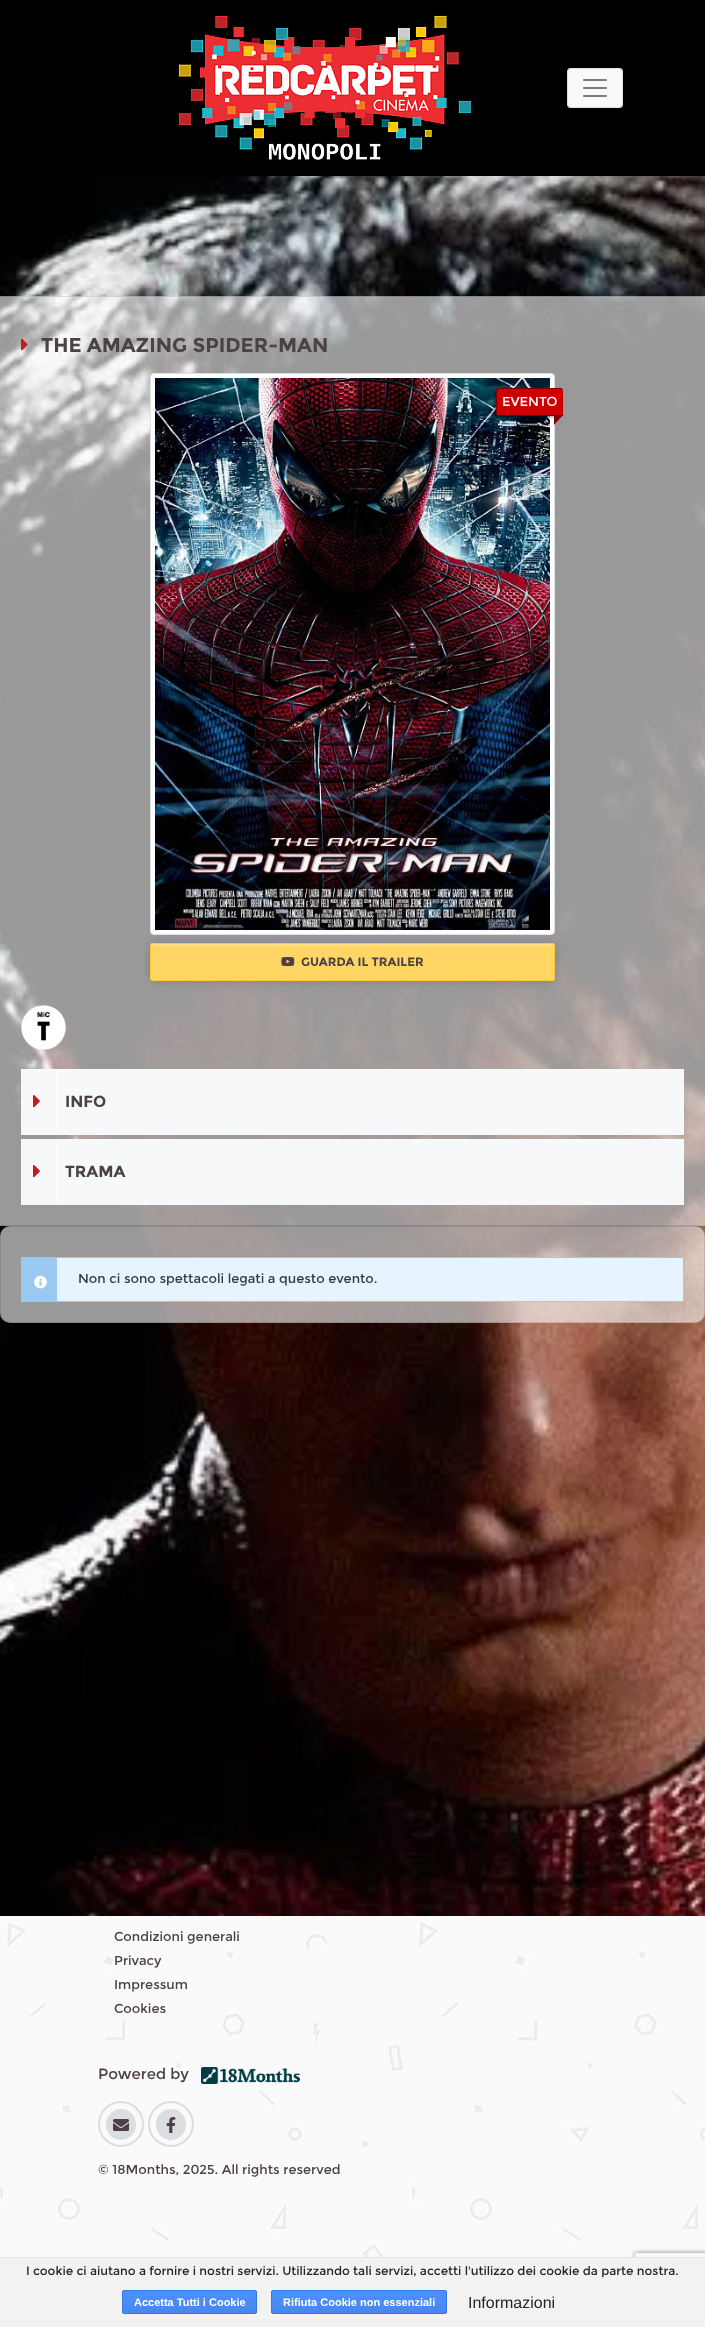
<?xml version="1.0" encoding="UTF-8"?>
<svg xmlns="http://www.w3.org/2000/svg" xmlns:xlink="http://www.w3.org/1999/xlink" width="705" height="2327">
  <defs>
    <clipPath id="clip1"><path d="M 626 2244 h 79 v 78 h -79 z m 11 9 h 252 c 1 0 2 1 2 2 v 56 c 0 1 -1 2 -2 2 h -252 c -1 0 -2 -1 -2 -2 v -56 c 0 -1 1 -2 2 -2 z" clip-rule="evenodd" /></clipPath>
    <clipPath id="clip2"><rect x="122" y="2290" width="135" height="24" rx="2" /></clipPath>
    <linearGradient id="g1" gradientUnits="userSpaceOnUse" x1="190" y1="2291" x2="190" y2="2313"><stop offset="0" stop-color="#4d90fe" /><stop offset="1" stop-color="#4787ed" /></linearGradient>
    <clipPath id="clip3"><rect x="271" y="2290" width="176" height="24" rx="2" /></clipPath>
    <linearGradient id="g2" gradientUnits="userSpaceOnUse" x1="359" y1="2291" x2="359" y2="2313"><stop offset="0" stop-color="#4d90fe" /><stop offset="1" stop-color="#4787ed" /></linearGradient>
  </defs>
  <rect width="100%" height="100%" fill="#ffffff" />
  <rect width="705" height="176" fill="#000000" />
  <image x="178" y="15" width="293" height="145" xlink:href="image1.png" />
  <rect x="567" y="68" width="56" height="40" rx="4" fill="#f8f9fa" />
  <rect x="567.5" y="68.5" width="55" height="39" rx="3.5" fill="none" stroke="#000000" stroke-opacity="0.1" />
  <image x="583" y="79" width="24" height="18" xlink:href="image2.png" />
  <image x="0" y="176" width="705" height="1740" xlink:href="image3.png" />
  <rect y="296" width="705" height="930" fill="#ffffff" fill-opacity="0.6" />
  <rect x="-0.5" y="296.5" width="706" height="929" fill="none" stroke="#000000" stroke-opacity="0.12" />
  <image x="21" y="338" width="7" height="13" xlink:href="image4.png" />
  <rect x="150" y="943" width="405" height="38" rx="3" fill="#000000" fill-opacity="0.16" filter="blur(5px)" />
  <rect x="150.5" y="373.5" width="404" height="561" rx="3.5" fill="#ffffff" stroke="#dee2e6" />
  <image x="155" y="378" width="395" height="552" xlink:href="image5.png" />
  <rect x="495" y="389" width="67" height="28" rx="3" fill="#000000" fill-opacity="0.4" filter="blur(1px)" />
  <path d="M 499 388 h 61 c 1.5 0 3 1.5 3 3 v 25 h -64 c -1.5 0 -3 -1.5 -3 -3 v -22 c 0 -1.5 1.5 -3 3 -3 z" fill="#cc0000" />
  <path d="M 499 388 h 61 c 2 0 3 1 3 3 v 25 h -64 c -2 0 -3 -1 -3 -3 v -22 c 0 -2 1 -3 3 -3 z m 0 1 h 61 c 2 0 3 1 3 2 v 24 h -64 c -1 0 -2 -1 -2 -2 v -22 c 0 -1 1 -2 2 -2 z" fill="#800000" fill-rule="evenodd" />
  <path d="M 554 425 v -10 h 9 z" fill="#800000" />
  <rect x="150" y="943" width="405" height="38" rx="3" fill="#ffd564" />
  <path d="M 153 946 h 399 c 1 0 2 1 2 2 c 0 -2 0 -4 -2 -4 h -400 c -1 1 -1 3 -1 4 c 0 -1 1 -2 2 -2 z" fill="#ffdd83" />
  <rect x="150.5" y="943.5" width="404" height="37" rx="2.5" fill="none" stroke="#ffc936" />
  <image x="281" y="957" width="14" height="9" xlink:href="image6.png" />
  <image x="21" y="1005" width="45" height="45" xlink:href="image7.png" />
  <rect x="21" y="1069" width="3" height="3" fill="#ffffff" />
  <path d="M 24 1069 h 660 v 66 h -663 v -63 c 0 -1.5 1.5 -3 3 -3 z" fill="#f7f8f9" />
  <rect x="56" y="1070" width="1" height="64" fill="#ffffff" />
  <image x="33" y="1095" width="7" height="13" xlink:href="image8.png" />
  <rect x="681" y="1139" width="3" height="3" fill="#ffffff" />
  <path d="M 21 1139 h 660 c 1.5 0 3 1.5 3 3 v 63 h -663 z" fill="#f7f8f9" />
  <rect x="56" y="1140" width="1" height="64" fill="#ffffff" />
  <image x="33" y="1165" width="7" height="13" xlink:href="image8.png" />
  <rect y="1226" width="705" height="97" rx="10" fill="#ffffff" fill-opacity="0.6" />
  <rect x="0.5" y="1226.5" width="704" height="96" rx="9.5" fill="none" stroke="#000000" stroke-opacity="0.12" />
  <rect x="57" y="1258" width="626" height="43" fill="#e7f4ff" />
  <rect x="21.5" y="1257.5" width="662" height="44" fill="none" stroke="#9ac8f1" />
  <rect x="22" y="1258" width="35" height="43" fill="#9ac8f1" />
  <image x="34" y="1275" width="13" height="14" xlink:href="image9.png" />
  <image x="0" y="1916" width="705" height="341" xlink:href="image10.png" />
  <image x="201" y="2067" width="99" height="17" xlink:href="image11.png" />
  <rect x="106" y="2109" width="30" height="31" rx="15" fill="#dbdee1" />
  <image x="113" y="2119" width="16" height="12" xlink:href="image12.png" />
  <circle cx="121" cy="2124" r="22" fill="none" stroke="#dbdee1" stroke-width="2" />
  <rect x="156" y="2109" width="30" height="31" rx="15" fill="#dbdee1" />
  <image x="166" y="2117" width="10" height="16" xlink:href="image13.png" />
  <circle cx="171" cy="2124" r="22" fill="none" stroke="#dbdee1" stroke-width="2" />
  <g clip-path="url(#clip1)">
    <rect x="635" y="2253" width="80" height="60" rx="2" fill="#808080" filter="blur(2.5px)" />
  </g>
  <rect y="2258" width="705" height="69" fill="#f2f2f2" />
  <rect y="2257" width="705" height="1" fill="#e4e4e4" />
  <g clip-path="url(#clip2)">
    <rect x="122" y="2291" width="135" height="22" fill="url(#g1)" />
  </g>
  <rect x="122.5" y="2290.5" width="134" height="23" rx="1.5" fill="none" stroke="#3079ed" />
  <g clip-path="url(#clip3)">
    <rect x="271" y="2291" width="176" height="22" fill="url(#g2)" />
  </g>
  <rect x="271.5" y="2290.5" width="175" height="23" rx="1.5" fill="none" stroke="#3079ed" />
  <text x="41" y="352" style="font-family: Montserrat; font-size: 20px; font-weight: bold; fill: #4c4145">THE AMAZING SPIDER-MAN</text>
  <text x="502" y="406" style="font-family: Montserrat; font-size: 13px; fill: #ffffff">EVENTO</text>
  <text x="301" y="966" style="font-family: Montserrat; font-size: 12px; font-weight: bold; fill: #4c4145">GUARDA IL TRAILER</text>
  <text x="65" y="1107" style="font-family: Montserrat; font-size: 16px; font-weight: bold; fill: #4c4145">INFO</text>
  <text x="65" y="1177" style="font-family: Montserrat; font-size: 16px; font-weight: bold; fill: #4c4145">TRAMA</text>
  <text x="78" y="1283" style="font-family: Montserrat; font-size: 13px; fill: #343a40">Non ci sono spettacoli legati a questo evento.</text>
  <text x="114" y="1941" style="font-family: Montserrat; font-size: 13px; fill: #4c4145">Condizioni generali</text>
  <text x="114" y="1965" style="font-family: Montserrat; font-size: 13px; fill: #4c4145">Privacy</text>
  <text x="114" y="1989" style="font-family: Montserrat; font-size: 13px; fill: #4c4145">Impressum</text>
  <text x="114" y="2013" style="font-family: Montserrat; font-size: 13px; fill: #4c4145">Cookies</text>
  <text x="98" y="2079" style="font-family: Montserrat; font-size: 15px; fill: #4c4145">Powered by</text>
  <text x="98" y="2174" style="font-family: Montserrat; font-size: 13px; fill: #4c4145">© 18Months, 2025. All rights reserved</text>
  <text x="26" y="2275" style="font-family: Montserrat; font-size: 12px; fill: #212529">I cookie ci aiutano a fornire i nostri servizi. Utilizzando tali servizi, accetti l'utilizzo dei cookie da parte nostra.</text>
  <text x="134" y="2306" style="font-family: Liberation Sans; font-size: 11px; font-weight: bold; fill: #ffffff">Accetta Tutti i Cookie</text>
  <text x="283" y="2306" style="font-family: Liberation Sans; font-size: 11px; font-weight: bold; fill: #ffffff">Rifiuta Cookie non essenziali</text>
  <text x="468" y="2308" style="font-family: Liberation Sans; font-size: 16px; fill: #212529">Informazioni</text>
</svg>
